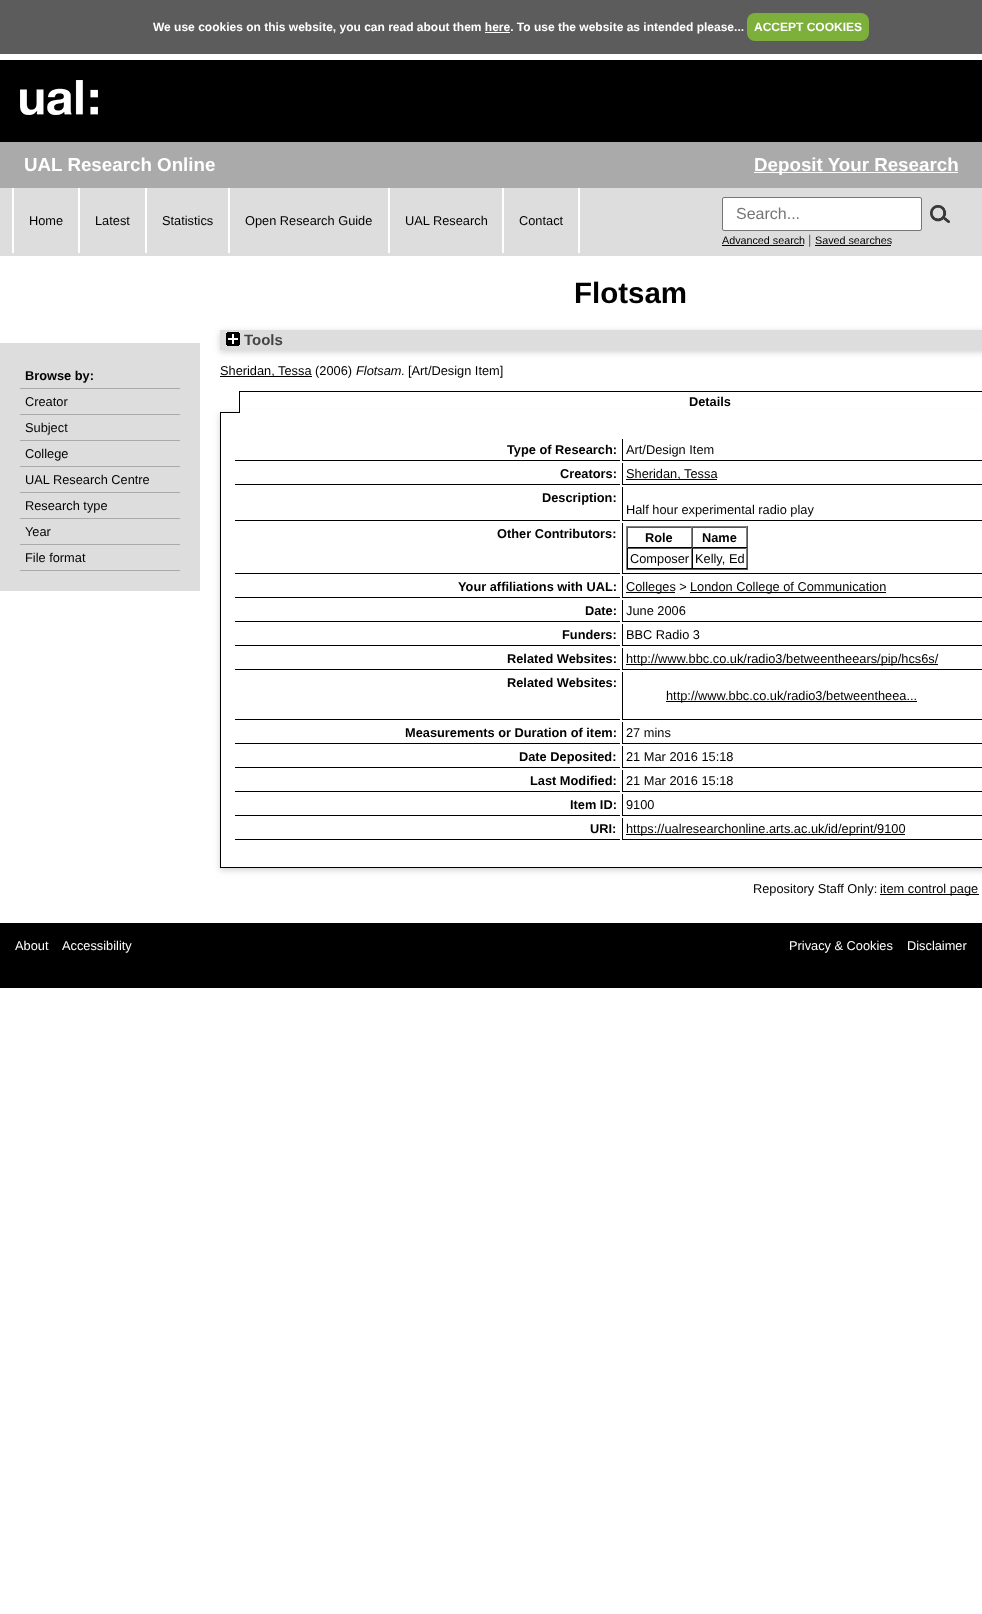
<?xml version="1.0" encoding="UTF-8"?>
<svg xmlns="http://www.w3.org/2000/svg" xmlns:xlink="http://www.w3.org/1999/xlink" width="982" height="1614">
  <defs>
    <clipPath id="clip1"><path d="M 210 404 h 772 v 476 h -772 z m 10 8 h 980 v 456 h -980 z" clip-rule="evenodd" /></clipPath>
  </defs>
  <rect width="100%" height="100%" fill="#ffffff" />
  <rect width="982" height="54" fill="#5c5c5c" />
  <rect x="747" y="13" width="122" height="28" rx="8" fill="#7daf3b" />
  <rect x="485" y="32" width="25" height="1" fill="#ffffff" />
  <rect y="60" width="982" height="82" fill="#000000" />
  <image x="20" y="80" width="78" height="35" xlink:href="image1.png" />
  <rect y="142" width="982" height="46" fill="#aaaaaa" />
  <rect x="754" y="172" width="204" height="1" fill="#ffffff" />
  <rect y="188" width="982" height="68" fill="#dddddd" />
  <rect x="12" y="188" width="2" height="65" fill="#ffffff" />
  <rect x="78" y="188" width="2" height="65" fill="#ffffff" />
  <rect x="145" y="188" width="2" height="65" fill="#ffffff" />
  <rect x="228" y="188" width="2" height="65" fill="#ffffff" />
  <rect x="388" y="188" width="2" height="65" fill="#ffffff" />
  <rect x="578" y="188" width="2" height="65" fill="#ffffff" />
  <rect x="502" y="188" width="2" height="65" fill="#ffffff" />
  <rect x="722.5" y="197.5" width="199" height="33" rx="1.5" fill="#ffffff" stroke="#767676" />
  <image x="930" y="205" width="20" height="18" xlink:href="image2.png" />
  <rect x="722" y="245" width="82" height="1" fill="#000000" />
  <rect x="815" y="245" width="76" height="1" fill="#000000" />
  <rect y="343" width="200" height="248" fill="#dddddd" />
  <rect x="20" y="388" width="160" height="1" fill="#aaaaaa" />
  <rect x="20" y="414" width="160" height="1" fill="#aaaaaa" />
  <rect x="20" y="440" width="160" height="1" fill="#aaaaaa" />
  <rect x="20" y="466" width="160" height="1" fill="#aaaaaa" />
  <rect x="20" y="492" width="160" height="1" fill="#aaaaaa" />
  <rect x="20" y="518" width="160" height="1" fill="#aaaaaa" />
  <rect x="20" y="544" width="160" height="1" fill="#aaaaaa" />
  <rect x="20" y="570" width="160" height="1" fill="#aaaaaa" />
  <rect x="220" y="332" width="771" height="20" fill="#646464" fill-opacity="0.3" filter="blur(3px)" />
  <rect x="220" y="330" width="762" height="20" fill="#dddddd" />
  <image x="226" y="332" width="14" height="14" xlink:href="image3.png" />
  <rect x="220" y="376" width="92" height="1" fill="#000000" />
  <g clip-path="url(#clip1)">
    <rect x="220" y="414" width="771" height="456" fill="#646464" fill-opacity="0.3" filter="blur(3px)" />
  </g>
  <rect x="220" y="867" width="762" height="1" fill="#000000" />
  <rect x="220" y="412" width="1" height="456" fill="#000000" />
  <rect x="220" y="412" width="19" height="1" fill="#000000" />
  <rect x="240" y="409" width="742" height="3" fill="#ffffff" />
  <rect x="239" y="391" width="743" height="1" fill="#000000" />
  <rect x="239" y="391" width="1" height="22" fill="#000000" />
  <rect x="235" y="460" width="385" height="1" fill="#000000" />
  <rect x="622" y="460" width="360" height="1" fill="#000000" />
  <rect x="622" y="439" width="1" height="22" fill="#000000" />
  <rect x="235" y="484" width="385" height="1" fill="#000000" />
  <rect x="622" y="484" width="360" height="1" fill="#000000" />
  <rect x="622" y="463" width="1" height="22" fill="#000000" />
  <rect x="626" y="479" width="91" height="1" fill="#000000" />
  <rect x="235" y="520" width="385" height="1" fill="#000000" />
  <rect x="622" y="520" width="360" height="1" fill="#000000" />
  <rect x="622" y="487" width="1" height="34" fill="#000000" />
  <rect x="235" y="573" width="385" height="1" fill="#000000" />
  <rect x="622" y="573" width="360" height="1" fill="#000000" />
  <rect x="622" y="523" width="1" height="51" fill="#000000" />
  <rect x="626" y="526" width="122" height="1" fill="#808080" />
  <rect x="747" y="526" width="1" height="44" fill="#555555" />
  <rect x="626" y="569" width="122" height="1" fill="#555555" />
  <rect x="626" y="526" width="1" height="44" fill="#808080" />
  <rect x="627" y="527" width="120" height="1" fill="#555555" />
  <rect x="691" y="527" width="1" height="21" fill="#808080" />
  <rect x="627" y="547" width="65" height="1" fill="#000000" />
  <rect x="627" y="527" width="1" height="21" fill="#555555" />
  <rect x="746" y="527" width="1" height="21" fill="#808080" />
  <rect x="692" y="547" width="55" height="1" fill="#000000" />
  <rect x="692" y="527" width="1" height="21" fill="#555555" />
  <rect x="627" y="548" width="120" height="1" fill="#555555" />
  <rect x="691" y="548" width="1" height="21" fill="#808080" />
  <rect x="627" y="568" width="65" height="1" fill="#000000" />
  <rect x="627" y="548" width="1" height="21" fill="#000000" />
  <rect x="746" y="548" width="1" height="21" fill="#808080" />
  <rect x="692" y="568" width="55" height="1" fill="#000000" />
  <rect x="692" y="548" width="1" height="21" fill="#000000" />
  <rect x="235" y="597" width="385" height="1" fill="#000000" />
  <rect x="622" y="597" width="360" height="1" fill="#000000" />
  <rect x="622" y="576" width="1" height="22" fill="#000000" />
  <rect x="626" y="592" width="49" height="1" fill="#000000" />
  <rect x="690" y="592" width="196" height="1" fill="#000000" />
  <rect x="235" y="621" width="385" height="1" fill="#000000" />
  <rect x="622" y="621" width="360" height="1" fill="#000000" />
  <rect x="622" y="600" width="1" height="22" fill="#000000" />
  <rect x="235" y="645" width="385" height="1" fill="#000000" />
  <rect x="622" y="645" width="360" height="1" fill="#000000" />
  <rect x="622" y="624" width="1" height="22" fill="#000000" />
  <rect x="235" y="669" width="385" height="1" fill="#000000" />
  <rect x="622" y="669" width="360" height="1" fill="#000000" />
  <rect x="622" y="648" width="1" height="22" fill="#000000" />
  <rect x="626" y="664" width="312" height="1" fill="#000000" />
  <rect x="235" y="719" width="385" height="1" fill="#000000" />
  <rect x="622" y="719" width="360" height="1" fill="#000000" />
  <rect x="622" y="672" width="1" height="48" fill="#000000" />
  <rect x="666" y="701" width="251" height="1" fill="#000000" />
  <rect x="235" y="743" width="385" height="1" fill="#000000" />
  <rect x="622" y="743" width="360" height="1" fill="#000000" />
  <rect x="622" y="722" width="1" height="22" fill="#000000" />
  <rect x="235" y="767" width="385" height="1" fill="#000000" />
  <rect x="622" y="767" width="360" height="1" fill="#000000" />
  <rect x="622" y="746" width="1" height="22" fill="#000000" />
  <rect x="235" y="791" width="385" height="1" fill="#000000" />
  <rect x="622" y="791" width="360" height="1" fill="#000000" />
  <rect x="622" y="770" width="1" height="22" fill="#000000" />
  <rect x="235" y="815" width="385" height="1" fill="#000000" />
  <rect x="622" y="815" width="360" height="1" fill="#000000" />
  <rect x="622" y="794" width="1" height="22" fill="#000000" />
  <rect x="235" y="839" width="385" height="1" fill="#000000" />
  <rect x="622" y="839" width="360" height="1" fill="#000000" />
  <rect x="622" y="818" width="1" height="22" fill="#000000" />
  <rect x="626" y="834" width="279" height="1" fill="#000000" />
  <rect x="880" y="894" width="99" height="1" fill="#000000" />
  <rect y="923" width="982" height="65" fill="#000000" />
  <text x="153" y="31" style="font-family: Liberation Sans; font-size: 12px; font-weight: bold; fill: #ffffff">We use cookies on this website, you can read about them here. To use the website as intended please...</text>
  <text x="754" y="31" style="font-family: Liberation Sans; font-size: 12px; font-weight: bold; fill: #ffffff">ACCEPT COOKIES</text>
  <text x="24" y="171" style="font-family: Liberation Sans; font-size: 18.75px; font-weight: bold; fill: #ffffff">UAL Research Online</text>
  <text x="754" y="171" style="font-family: Liberation Sans; font-size: 18.75px; font-weight: bold; fill: #ffffff">Deposit Your Research</text>
  <text x="29" y="225" style="font-family: Liberation Sans; font-size: 12.8px; fill: #000000">Home</text>
  <text x="95" y="225" style="font-family: Liberation Sans; font-size: 12.8px; fill: #000000">Latest</text>
  <text x="162" y="225" style="font-family: Liberation Sans; font-size: 12.8px; fill: #000000">Statistics</text>
  <text x="245" y="225" style="font-family: Liberation Sans; font-size: 12.8px; fill: #000000">Open Research Guide</text>
  <text x="405" y="225" style="font-family: Liberation Sans; font-size: 12.8px; fill: #000000">UAL Research</text>
  <text x="519" y="225" style="font-family: Liberation Sans; font-size: 12.8px; fill: #000000">Contact</text>
  <text x="736" y="219" style="font-family: Liberation Sans; font-size: 16px; fill: #757575">Search...</text>
  <text x="722" y="244" style="font-family: Liberation Sans; font-size: 10.75px; fill: #000000">Advanced search</text>
  <text x="808" y="244" style="font-family: Liberation Sans; font-size: 12.8px; fill: #606060">|</text>
  <text x="815" y="244" style="font-family: Liberation Sans; font-size: 10.75px; fill: #000000">Saved searches</text>
  <text x="574" y="303" style="font-family: Liberation Sans; font-size: 29.5px; font-weight: bold; fill: #000000">Flotsam</text>
  <text x="25" y="380" style="font-family: Liberation Sans; font-size: 12.8px; font-weight: bold; fill: #000000">Browse by:</text>
  <text x="25" y="406" style="font-family: Liberation Sans; font-size: 12.8px; fill: #000000">Creator</text>
  <text x="25" y="432" style="font-family: Liberation Sans; font-size: 12.8px; fill: #000000">Subject</text>
  <text x="25" y="458" style="font-family: Liberation Sans; font-size: 12.8px; fill: #000000">College</text>
  <text x="25" y="484" style="font-family: Liberation Sans; font-size: 12.8px; fill: #000000">UAL Research Centre</text>
  <text x="25" y="510" style="font-family: Liberation Sans; font-size: 12.8px; fill: #000000">Research type</text>
  <text x="25" y="536" style="font-family: Liberation Sans; font-size: 12.8px; fill: #000000">Year</text>
  <text x="25" y="562" style="font-family: Liberation Sans; font-size: 12.8px; fill: #000000">File format</text>
  <text x="244" y="345" style="font-family: Liberation Sans; font-size: 15px; font-weight: bold; fill: #444444">Tools</text>
  <text x="220" y="375" style="font-family: Liberation Sans; font-size: 12.8px; fill: #000000">Sheridan, Tessa (2006)</text>
  <text x="356" y="375" style="font-family: Liberation Sans; font-size: 12.8px; font-style: italic; fill: #000000">Flotsam.</text>
  <text x="408" y="375" style="font-family: Liberation Sans; font-size: 12.8px; fill: #000000">[Art/Design Item]</text>
  <text x="689" y="406" style="font-family: Liberation Sans; font-size: 12.8px; font-weight: bold; fill: #000000">Details</text>
  <text x="507" y="454" style="font-family: Liberation Sans; font-size: 12.8px; font-weight: bold; fill: #000000">Type of Research:</text>
  <text x="626" y="454" style="font-family: Liberation Sans; font-size: 12.8px; fill: #000000">Art/Design Item</text>
  <text x="560" y="478" style="font-family: Liberation Sans; font-size: 12.8px; font-weight: bold; fill: #000000">Creators:</text>
  <text x="626" y="478" style="font-family: Liberation Sans; font-size: 12.8px; fill: #000000">Sheridan, Tessa</text>
  <text x="542" y="502" style="font-family: Liberation Sans; font-size: 12.8px; font-weight: bold; fill: #000000">Description:</text>
  <text x="626" y="514" style="font-family: Liberation Sans; font-size: 12.8px; fill: #000000">Half hour experimental radio play</text>
  <text x="497" y="538" style="font-family: Liberation Sans; font-size: 12.8px; font-weight: bold; fill: #000000">Other Contributors:</text>
  <text x="645" y="542" style="font-family: Liberation Sans; font-size: 12.8px; font-weight: bold; fill: #000000">Role</text>
  <text x="702" y="542" style="font-family: Liberation Sans; font-size: 12.8px; font-weight: bold; fill: #000000">Name</text>
  <text x="630" y="563" style="font-family: Liberation Sans; font-size: 12.8px; fill: #000000">Composer</text>
  <text x="695" y="563" style="font-family: Liberation Sans; font-size: 12.8px; fill: #000000">Kelly, Ed</text>
  <text x="458" y="591" style="font-family: Liberation Sans; font-size: 12.8px; font-weight: bold; fill: #000000">Your affiliations with UAL:</text>
  <text x="626" y="591" style="font-family: Liberation Sans; font-size: 12.8px; fill: #000000">Colleges &gt;</text>
  <text x="690" y="591" style="font-family: Liberation Sans; font-size: 12.8px; fill: #000000">London College of Communication</text>
  <text x="585" y="615" style="font-family: Liberation Sans; font-size: 12.8px; font-weight: bold; fill: #000000">Date:</text>
  <text x="626" y="615" style="font-family: Liberation Sans; font-size: 12.8px; fill: #000000">June 2006</text>
  <text x="562" y="639" style="font-family: Liberation Sans; font-size: 12.8px; font-weight: bold; fill: #000000">Funders:</text>
  <text x="626" y="639" style="font-family: Liberation Sans; font-size: 12.8px; fill: #000000">BBC Radio 3</text>
  <text x="507" y="663" style="font-family: Liberation Sans; font-size: 12.8px; font-weight: bold; fill: #000000">Related Websites:</text>
  <text x="626" y="663" style="font-family: Liberation Sans; font-size: 12.8px; fill: #000000">http://www.bbc.co.uk/radio3/betweentheears/pip/hcs6s/</text>
  <text x="507" y="687" style="font-family: Liberation Sans; font-size: 12.8px; font-weight: bold; fill: #000000">Related Websites:</text>
  <text x="666" y="700" style="font-family: Liberation Sans; font-size: 12.8px; fill: #000000">http://www.bbc.co.uk/radio3/betweentheea...</text>
  <text x="405" y="737" style="font-family: Liberation Sans; font-size: 12.8px; font-weight: bold; fill: #000000">Measurements or Duration of item:</text>
  <text x="626" y="737" style="font-family: Liberation Sans; font-size: 12.8px; fill: #000000">27 mins</text>
  <text x="519" y="761" style="font-family: Liberation Sans; font-size: 12.8px; font-weight: bold; fill: #000000">Date Deposited:</text>
  <text x="626" y="761" style="font-family: Liberation Sans; font-size: 12.8px; fill: #000000">21 Mar 2016 15:18</text>
  <text x="530" y="785" style="font-family: Liberation Sans; font-size: 12.8px; font-weight: bold; fill: #000000">Last Modified:</text>
  <text x="626" y="785" style="font-family: Liberation Sans; font-size: 12.8px; fill: #000000">21 Mar 2016 15:18</text>
  <text x="570" y="809" style="font-family: Liberation Sans; font-size: 12.8px; font-weight: bold; fill: #000000">Item ID:</text>
  <text x="626" y="809" style="font-family: Liberation Sans; font-size: 12.8px; fill: #000000">9100</text>
  <text x="590" y="833" style="font-family: Liberation Sans; font-size: 12.8px; font-weight: bold; fill: #000000">URI:</text>
  <text x="626" y="833" style="font-family: Liberation Sans; font-size: 12.8px; fill: #000000">https://ualresearchonline.arts.ac.uk/id/eprint/9100</text>
  <text x="753" y="893" style="font-family: Liberation Sans; font-size: 12.8px; fill: #000000">Repository Staff Only:</text>
  <text x="880" y="893" style="font-family: Liberation Sans; font-size: 12.8px; fill: #000000">item control page</text>
  <text x="15" y="950" style="font-family: Liberation Sans; font-size: 12.8px; fill: #ffffff">About</text>
  <text x="62" y="950" style="font-family: Liberation Sans; font-size: 12.8px; fill: #ffffff">Accessibility</text>
  <text x="789" y="950" style="font-family: Liberation Sans; font-size: 12.8px; fill: #ffffff">Privacy &amp; Cookies</text>
  <text x="907" y="950" style="font-family: Liberation Sans; font-size: 12.8px; fill: #ffffff">Disclaimer</text>
</svg>
